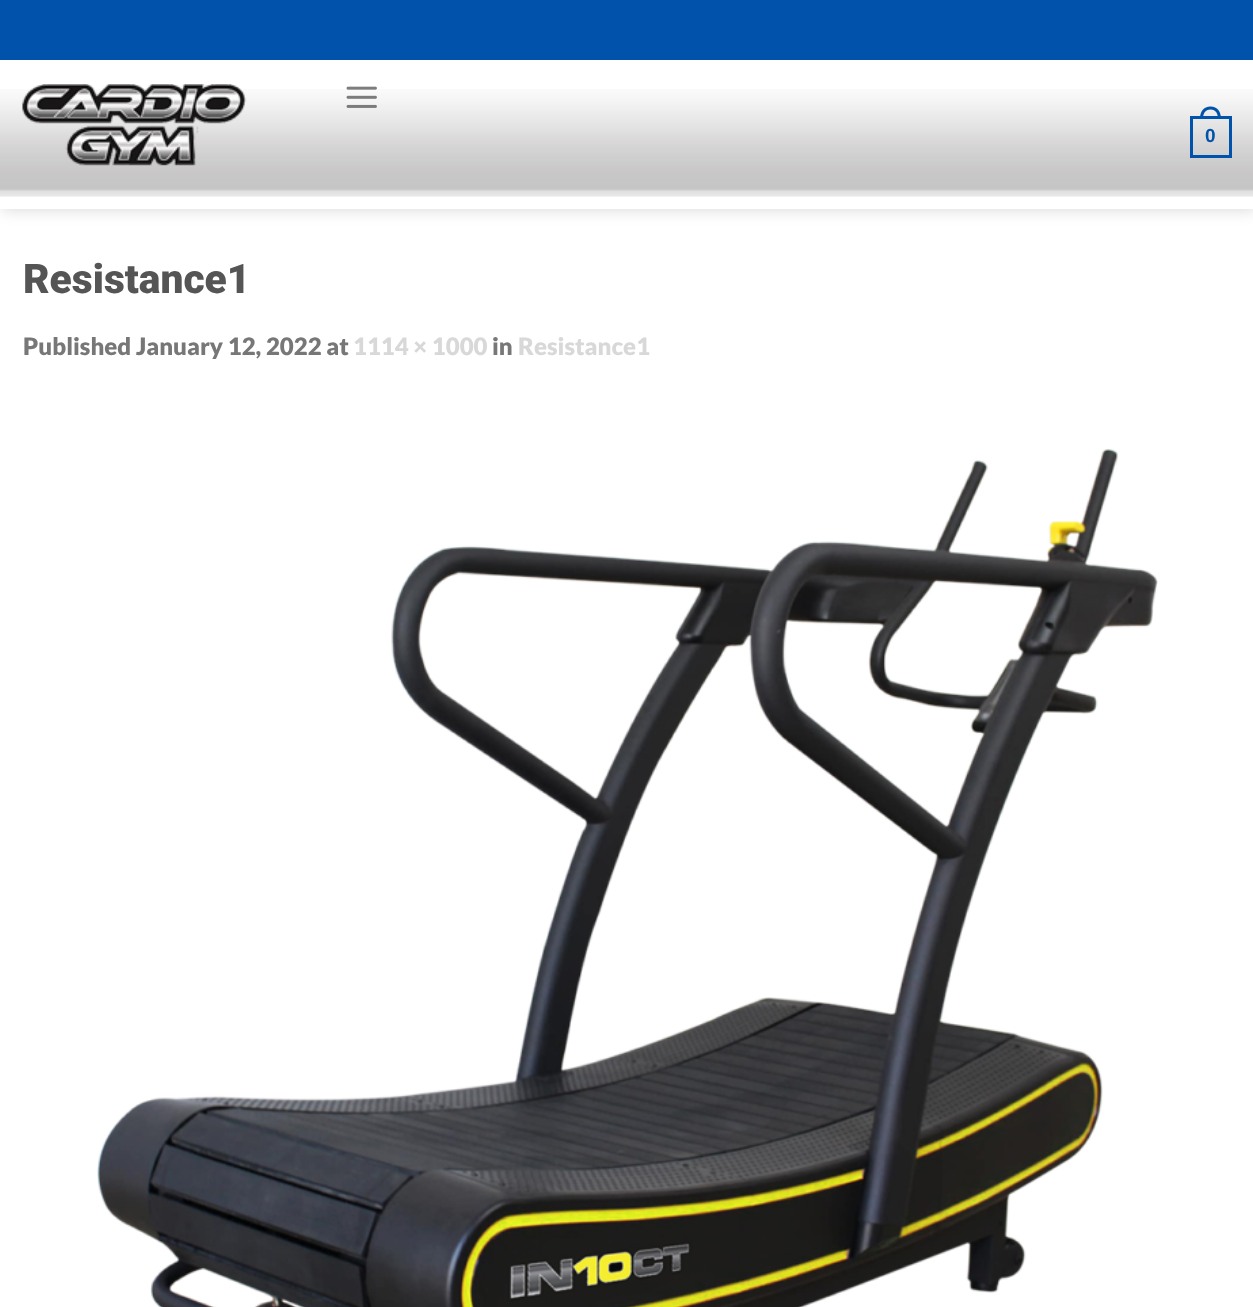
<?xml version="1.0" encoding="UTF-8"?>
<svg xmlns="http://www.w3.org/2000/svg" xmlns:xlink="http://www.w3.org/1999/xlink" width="1253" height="1307">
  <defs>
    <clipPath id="clip1"><path d="M 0 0 h 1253 v 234 h -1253 z m 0 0 h 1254 v 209 h -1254 z" clip-rule="evenodd" /></clipPath>
  </defs>
  <rect width="100%" height="100%" fill="#ffffff" />
  <g clip-path="url(#clip1)">
    <rect x="2" y="2" width="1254" height="208" fill="#000000" fill-opacity="0.15" filter="blur(7.5px)" />
  </g>
  <rect width="1253" height="60" fill="#0052ab" />
  <image x="0" y="89" width="1253" height="108" xlink:href="image1.png" />
  <image x="22" y="84" width="225" height="82" xlink:href="image2.png" />
  <image x="346" y="86" width="31" height="22" xlink:href="image3.png" />
  <rect x="1191.5" y="117.5" width="39" height="39" fill="none" stroke="#0052ab" stroke-width="3" />
  <path d="M 1210.5 106.5 c 7 0 10.5 5.5 10.5 12 h -21 c 0 -6.5 3.5 -12 10.5 -12 z m 0 3 c 5.5 0 7.5 4.5 7.5 9 h -15 c 0 -4.5 2 -9 7.5 -9 z" fill="#0052ab" fill-rule="evenodd" />
  <image x="97" y="449" width="1061" height="858" xlink:href="image4.png" />
  <text x="1205" y="142" style="font-family: Liberation Sans; font-size: 19px; font-weight: bold; fill: #0052ab">0</text>
  <text x="23" y="293" style="font-family: Roboto; font-size: 40.75px; font-weight: 900; fill: #555555">Resistance1</text>
  <text x="23" y="355" style="font-family: Lato; font-size: 24px; font-weight: 900; fill: #777777">Published January 12, 2022 at</text>
  <text x="353" y="355" style="font-family: Lato; font-size: 24px; font-weight: 900; fill: #d8d8d8">1114 × 1000</text>
  <text x="492" y="355" style="font-family: Lato; font-size: 24px; font-weight: 900; fill: #777777">in</text>
  <text x="518" y="355" style="font-family: Lato; font-size: 24px; font-weight: 900; fill: #d8d8d8">Resistance1</text>
</svg>
